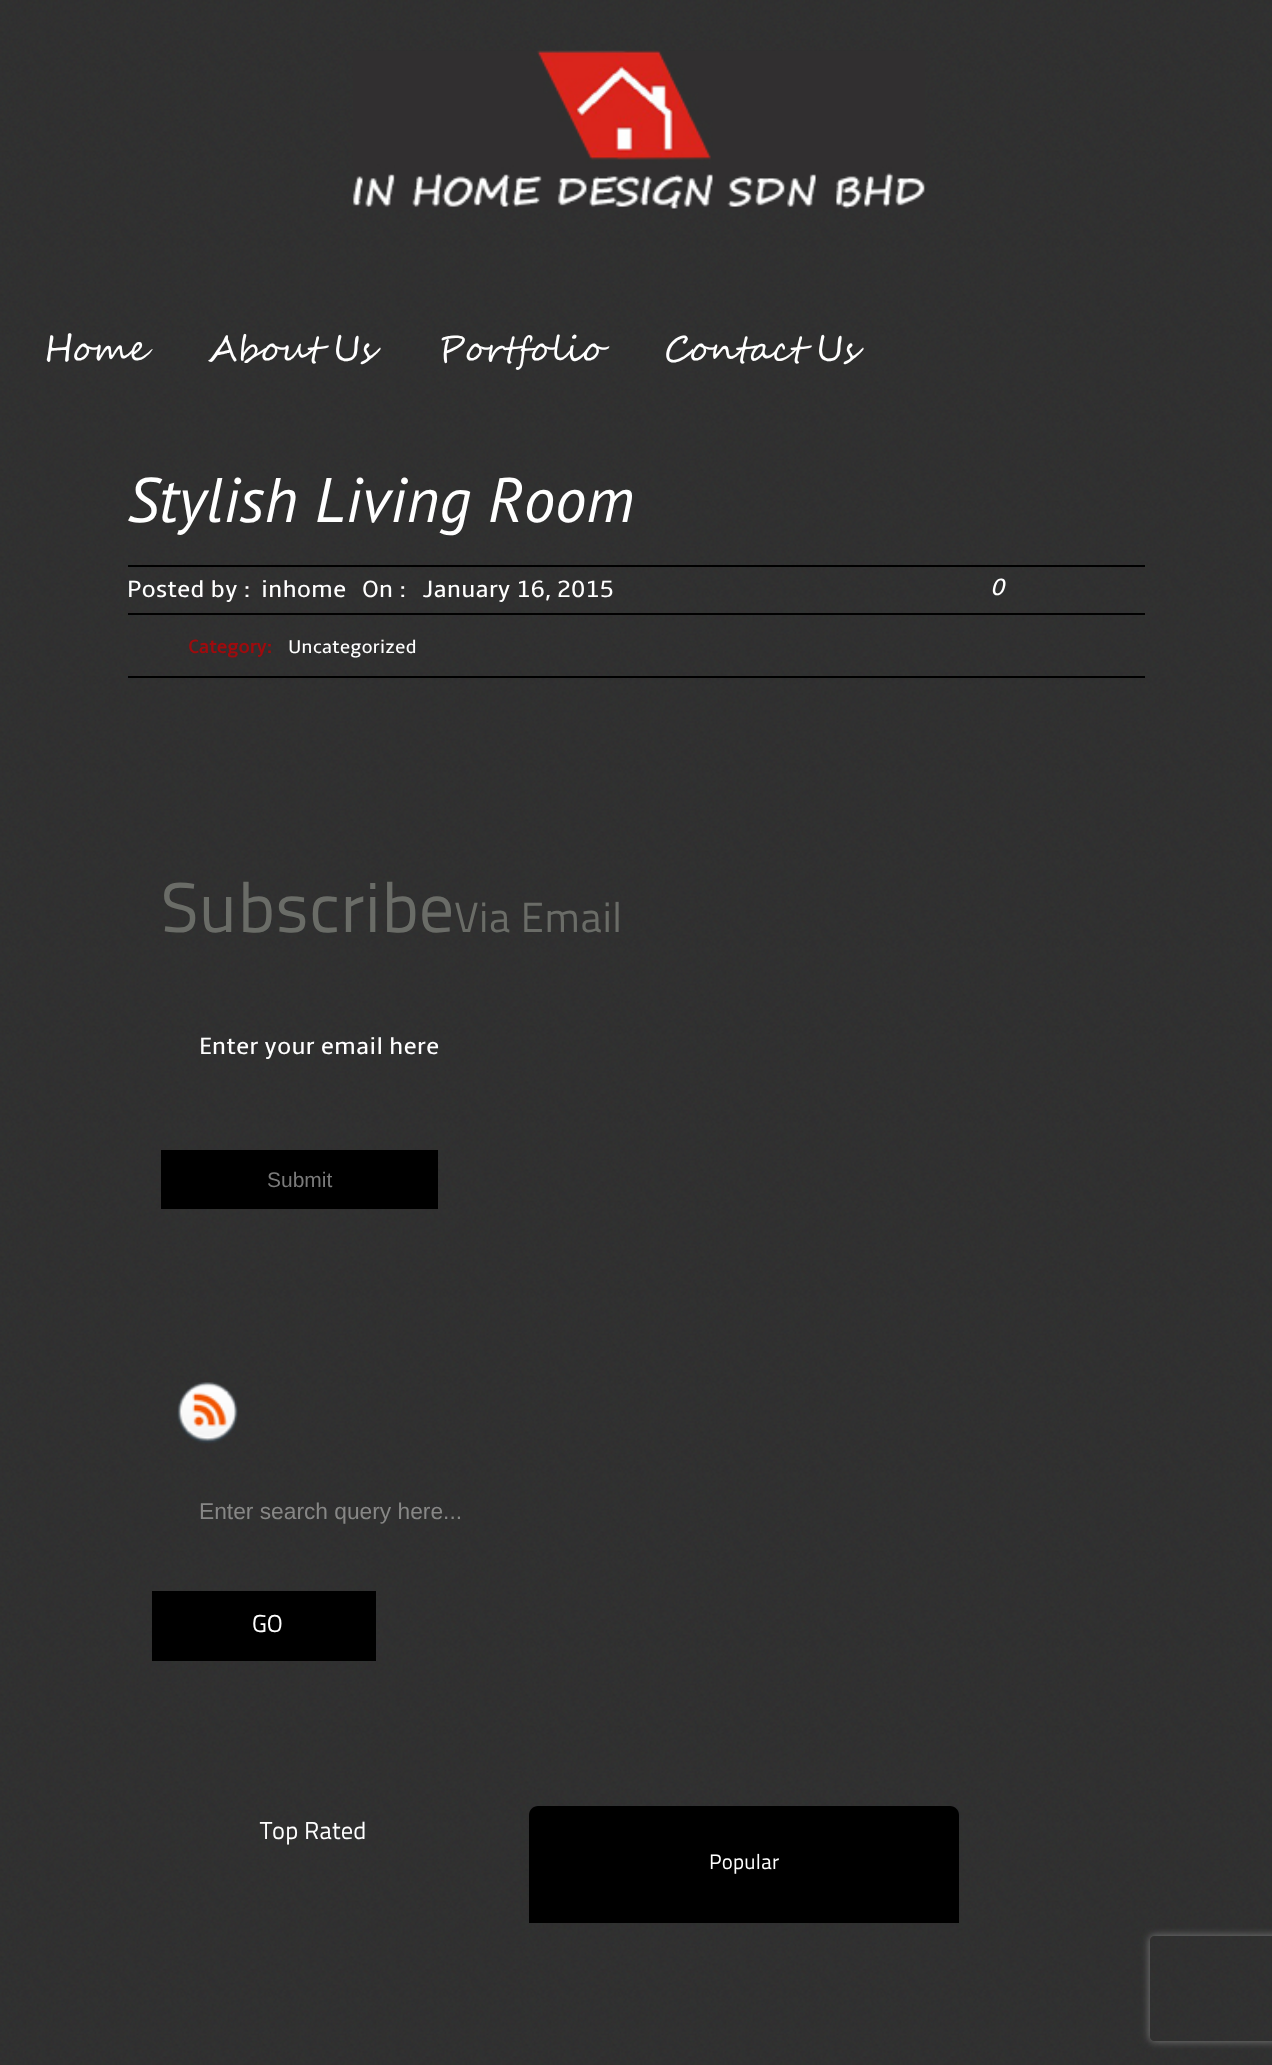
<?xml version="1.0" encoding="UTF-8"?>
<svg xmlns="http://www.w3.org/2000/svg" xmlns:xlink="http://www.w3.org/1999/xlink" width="1272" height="2065">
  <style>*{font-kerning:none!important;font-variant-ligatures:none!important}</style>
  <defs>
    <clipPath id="clip1"><path d="M 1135 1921 h 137 v 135 h -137 z m 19 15 h 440 c 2 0 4 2 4 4 v 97 c 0 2 -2 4 -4 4 h -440 c -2 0 -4 -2 -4 -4 v -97 c 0 -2 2 -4 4 -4 z" clip-rule="evenodd" /></clipPath>
  </defs>
  <rect width="100%" height="100%" fill="#ffffff" />
  <image x="0" y="0" width="1272" height="2065" xlink:href="image1.png" />
  <image x="353" y="50" width="572" height="159" xlink:href="image2.png" />
  <rect x="128" y="565" width="1017" height="2" fill="#000000" />
  <rect x="128" y="613" width="1017" height="2" fill="#000000" />
  <rect x="128" y="676" width="1017" height="2" fill="#000000" />
  <rect x="161" y="1150" width="277" height="59" fill="#000000" />
  <image x="177" y="1382" width="61" height="62" xlink:href="image3.png" />
  <rect x="152" y="1591" width="224" height="70" fill="#000000" />
  <path d="M 538 1806 h 412 c 5 0 9 4 9 9 v 108 h -430 v -108 c 0 -5 4 -9 9 -9 z" fill="#000000" />
  <g clip-path="url(#clip1)">
    <rect x="1150" y="1936" width="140" height="105" rx="4" fill="#808080" filter="blur(4.5px)" />
  </g>
  <text x="44" y="361" style="font-family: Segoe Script; font-size: 35px; fill: #ffffff">Home</text>
  <text x="208" y="361" word-spacing="-2" style="font-family: Segoe Script; font-size: 35px; fill: #ffffff">About Us</text>
  <text x="438" y="361" style="font-family: Segoe Script; font-size: 35px; fill: #ffffff">Portfolio</text>
  <text x="664" y="361" word-spacing="-2" style="font-family: Segoe Script; font-size: 35px; fill: #ffffff">Contact Us</text>
  <text x="127" y="522" style="font-family: PT Sans; font-size: 63px; font-style: italic; fill: #ffffff">Stylish Living Room</text>
  <text x="127" y="597" style="font-family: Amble; font-size: 24.5px; fill: #ffffff">Posted by :</text>
  <text x="261" y="597" style="font-family: Amble; font-size: 24.5px; fill: #ffffff">inhome</text>
  <text x="362" y="597" style="font-family: Amble; font-size: 24.5px; fill: #ffffff">On :</text>
  <text x="422" y="597" style="font-family: Amble; font-size: 24.5px; fill: #ffffff">January 16, 2015</text>
  <text x="990" y="595" style="font-family: Amble; font-size: 24.5px; font-style: italic; fill: #ffffff">0</text>
  <text x="188" y="653" style="font-family: Amble; font-size: 19.25px; font-weight: bold; fill: #9e0b0e">Category:</text>
  <text x="288" y="653" style="font-family: Amble; font-size: 19.25px; fill: #ffffff">Uncategorized</text>
  <text x="161" y="932" style="font-family: 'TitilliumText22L'; font-size: 70px; fill: #6a6c67">Subscribe</text>
  <text x="454" y="932" style="font-family: 'TitilliumText22L'; font-size: 42px; fill: #6a6c67">Via Email</text>
  <text x="199" y="1054" style="font-family: Amble; font-size: 24.5px; fill: #ffffff">Enter your email here</text>
  <text x="267" y="1187" style="font-family: Liberation Sans; font-size: 21px; fill: #7a7a7a">Submit</text>
  <text x="199" y="1519" style="font-family: Liberation Sans; font-size: 22.75px; fill: #878786">Enter search query here...</text>
  <text x="252" y="1632" style="font-family: 'TitilliumText22L'; font-size: 24.5px; fill: #ffffff">GO</text>
  <text x="260" y="1839" style="font-family: 'TitilliumText22L'; font-size: 24.5px; fill: #ffffff">Top Rated</text>
  <text x="709" y="1869" style="font-family: 'TitilliumText22L'; font-size: 21px; fill: #ffffff">Popular</text>
</svg>
